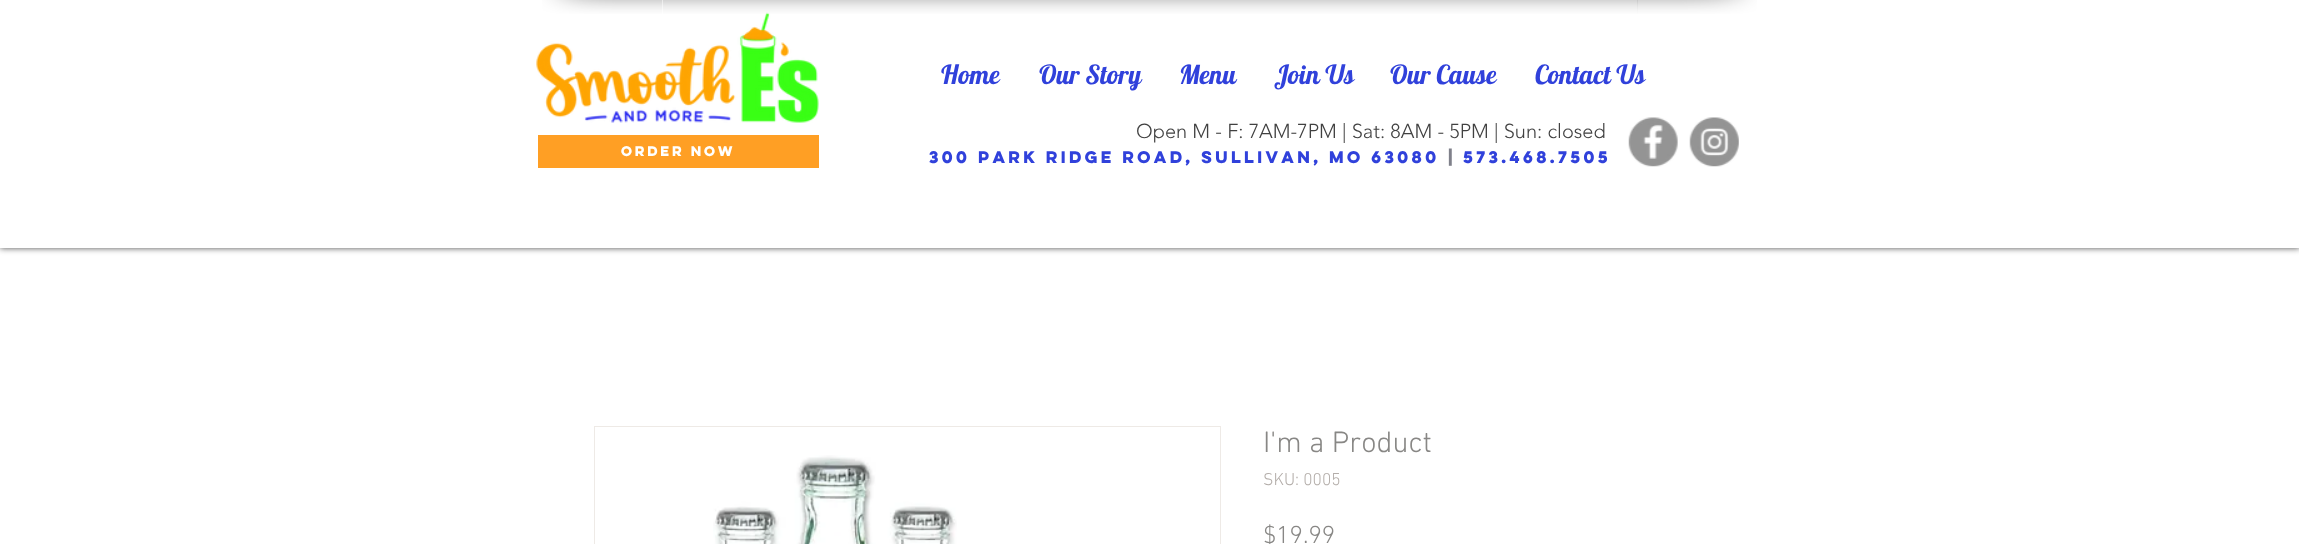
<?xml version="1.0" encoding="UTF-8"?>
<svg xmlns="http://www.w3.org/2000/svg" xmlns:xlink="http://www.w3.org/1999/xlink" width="2299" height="544">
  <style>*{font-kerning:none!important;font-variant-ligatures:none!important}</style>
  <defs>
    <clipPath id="clip1"><path d="M 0 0 h 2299 v 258 h -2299 z m 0 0 h 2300 v 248 h -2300 z" clip-rule="evenodd" /></clipPath>
  </defs>
  <rect width="100%" height="100%" fill="#ffffff" />
  <image x="542" y="0" width="121" height="14" xlink:href="image1.png" />
  <image x="663" y="0" width="975" height="14" xlink:href="image2.png" />
  <image x="1637" y="0" width="120" height="14" xlink:href="image3.png" />
  <g clip-path="url(#clip1)">
    <rect width="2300" height="248" fill="#000000" fill-opacity="0.7" filter="blur(3px)" />
  </g>
  <rect width="2299" height="248" fill="#ffffff" fill-opacity="0.53" />
  <image x="536" y="12" width="283" height="111" xlink:href="image4.png" />
  <rect x="538" y="135" width="281" height="33" fill="#ff9f24" />
  <image x="1628" y="117" width="50" height="50" xlink:href="image5.png" />
  <image x="1689" y="117" width="50" height="50" xlink:href="image6.png" />
  <rect x="594.5" y="426.5" width="626" height="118" fill="none" stroke="#eeeae6" />
  <image x="713" y="455" width="244" height="89" xlink:href="image7.png" />
  <text x="941" y="84" style="font-family: Lobster; font-size: 26.25px; fill: #3041db">Home</text>
  <text x="1039" y="84" style="font-family: Lobster; font-size: 26.25px; fill: #3041db">Our Story</text>
  <text x="1179" y="84" style="font-family: Lobster; font-size: 26.25px; fill: #3041db">Menu</text>
  <text x="1274" y="84" style="font-family: Lobster; font-size: 26.25px; fill: #3041db">Join Us</text>
  <text x="1390" y="84" style="font-family: Lobster; font-size: 26.25px; fill: #3041db">Our Cause</text>
  <text x="1535" y="84" style="font-family: Lobster; font-size: 26.25px; fill: #3041db">Contact Us</text>
  <text x="621" y="156" style="font-family: 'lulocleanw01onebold'; font-size: 12.5px; font-weight: bold; fill: #ffffff">ORDER NOW</text>
  <text x="1136" y="138" style="font-family: 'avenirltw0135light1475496'; font-size: 20px; font-weight: 300; fill: #414141">Open M - F: 7AM-7PM | Sat: 8AM - 5PM | Sun: closed</text>
  <text x="929" y="163" style="font-family: 'lulocleanw01onebold'; font-size: 15px; font-weight: bold; fill: #3041db">300 Park Ridge Road, Sullivan,</text>
  <text x="1329" y="163" style="font-family: 'lulocleanw01onebold'; font-size: 15px; font-weight: bold; fill: #3041db">MO 63080</text>
  <text x="1448" y="163" style="font-family: 'lulocleanw01onebold'; font-size: 15px; font-weight: bold; fill: #7f808a">|</text>
  <text x="1463" y="163" style="font-family: 'lulocleanw01onebold'; font-size: 15px; font-weight: bold; fill: #3041db">573.468.7505</text>
  <text x="1263" y="452" style="font-family: 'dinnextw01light'; font-size: 30px; font-weight: 300; fill: #888785">I'm a Product</text>
  <text x="1263" y="485" style="font-family: 'dinnextw01light'; font-size: 17.5px; font-weight: 300; fill: #b3ada9">SKU: 0005</text>
  <text x="1263" y="543" style="font-family: 'dinnextw01light'; font-size: 25px; font-weight: 300; fill: #888785">$19.99</text>
</svg>
